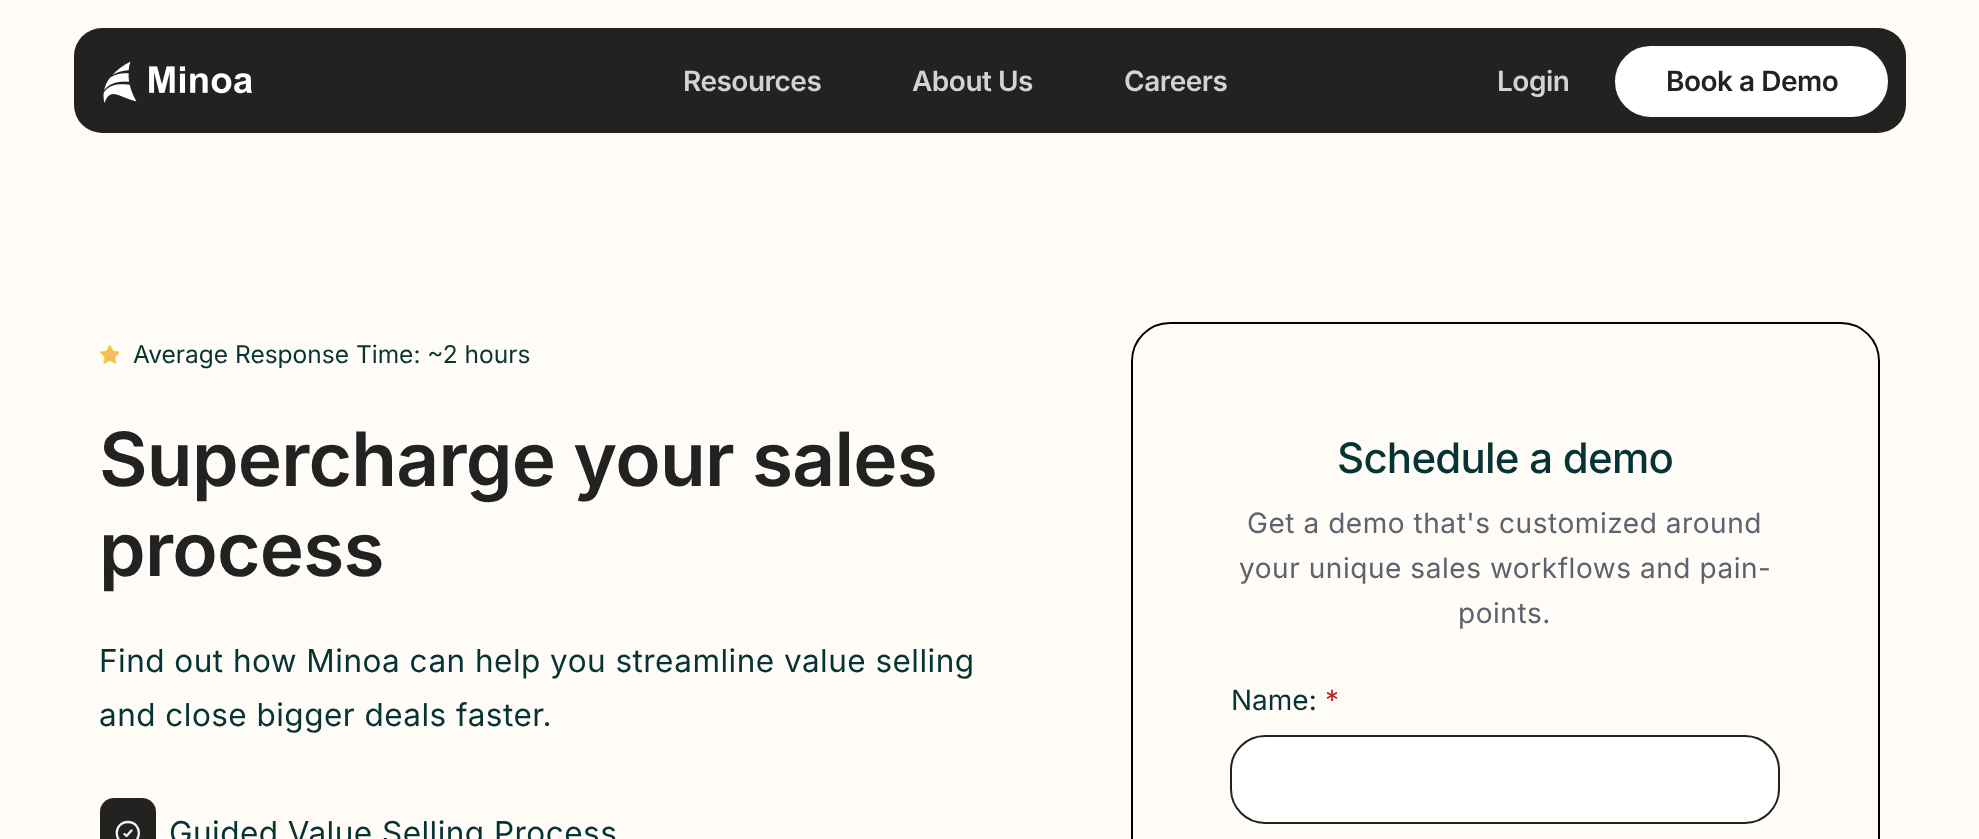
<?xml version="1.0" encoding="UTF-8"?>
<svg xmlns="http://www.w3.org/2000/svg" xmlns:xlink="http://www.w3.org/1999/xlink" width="1979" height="839">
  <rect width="100%" height="100%" fill="#fffcf8" />
  <rect x="74" y="28" width="1832" height="105" rx="28" fill="#242220" />
  <image x="103" y="61" width="149" height="42" xlink:href="image1.png" />
  <rect x="1616" y="47" width="271" height="69" rx="34.5" fill="#ffffff" stroke="#fffcf8" stroke-width="2" />
  <image x="100" y="345" width="19" height="19" xlink:href="image2.png" />
  <rect x="100" y="798" width="56" height="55" rx="14" fill="#242220" />
  <path d="M 131.5 830.5 l -5 5.5 l -2 -2 m 3.5 -12 c -15 0 -15 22 0 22 c 14.5 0 14.5 -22 0 -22 z" fill="none" stroke="#f0f1f5" stroke-width="2.3" stroke-linecap="round" stroke-linejoin="round" />
  <rect x="1132" y="323" width="747" height="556" rx="38" fill="none" stroke="#000000" stroke-width="2" />
  <rect x="1231" y="736" width="548" height="87" rx="34" fill="#ffffff" stroke="#242220" stroke-width="2" />
  <text x="683" y="91" style="font-family: Inter; font-size: 28px; font-weight: 600; letter-spacing: -0.5px; fill: #d3d3d2">Resources</text>
  <text x="912" y="91" style="font-family: Inter; font-size: 28px; font-weight: 600; letter-spacing: -0.5px; fill: #d3d3d2">About Us</text>
  <text x="1124" y="91" style="font-family: Inter; font-size: 28px; font-weight: 600; letter-spacing: -0.5px; fill: #d3d3d2">Careers</text>
  <text x="1497" y="91" style="font-family: Inter; font-size: 28px; font-weight: 600; letter-spacing: -0.5px; fill: #d3d3d2">Login</text>
  <text x="1666" y="91" style="font-family: Inter; font-size: 28px; font-weight: 600; letter-spacing: -0.5px; fill: #222222">Book a Demo</text>
  <text x="133" y="363" style="font-family: Inter; font-size: 24.5px; fill: #063333">Average Response Time: ~2 hours</text>
  <text x="99" y="486" style="font-family: Inter; font-size: 74.75px; font-weight: 600; letter-spacing: -0.75px; fill: #222222">Supercharge your sales</text>
  <text x="99" y="576" style="font-family: Inter; font-size: 74.75px; font-weight: 600; letter-spacing: -0.75px; fill: #222222">process</text>
  <text x="99" y="672" style="font-family: Inter; font-size: 31.5px; letter-spacing: 0.47px; fill: #063333">Find out how Minoa can help you streamline value selling</text>
  <text x="99" y="726" style="font-family: Inter; font-size: 31.5px; letter-spacing: 0.47px; fill: #063333">and close bigger deals faster.</text>
  <text x="169" y="844" style="font-family: Inter; font-size: 31.5px; letter-spacing: 0.47px; fill: #063333">Guided Value Selling Process</text>
  <text x="1337" y="473" style="font-family: Inter; font-size: 42px; font-weight: 500; letter-spacing: -0.75px; fill: #063333">Schedule a demo</text>
  <text x="1247" y="533" style="font-family: Inter; font-size: 28px; letter-spacing: 0.55px; fill: #5d626e">Get a demo that's customized around</text>
  <text x="1239" y="578" style="font-family: Inter; font-size: 28px; letter-spacing: 0.55px; fill: #5d626e">your unique sales workflows and pain-</text>
  <text x="1458" y="623" style="font-family: Inter; font-size: 28px; letter-spacing: 0.55px; fill: #5d626e">points.</text>
  <text x="1231" y="710" style="font-family: Inter; font-size: 28px; fill: #063333">Name:</text>
  <text x="1325" y="710" style="font-family: Inter; font-size: 28px; fill: #b8252f">*</text>
</svg>
